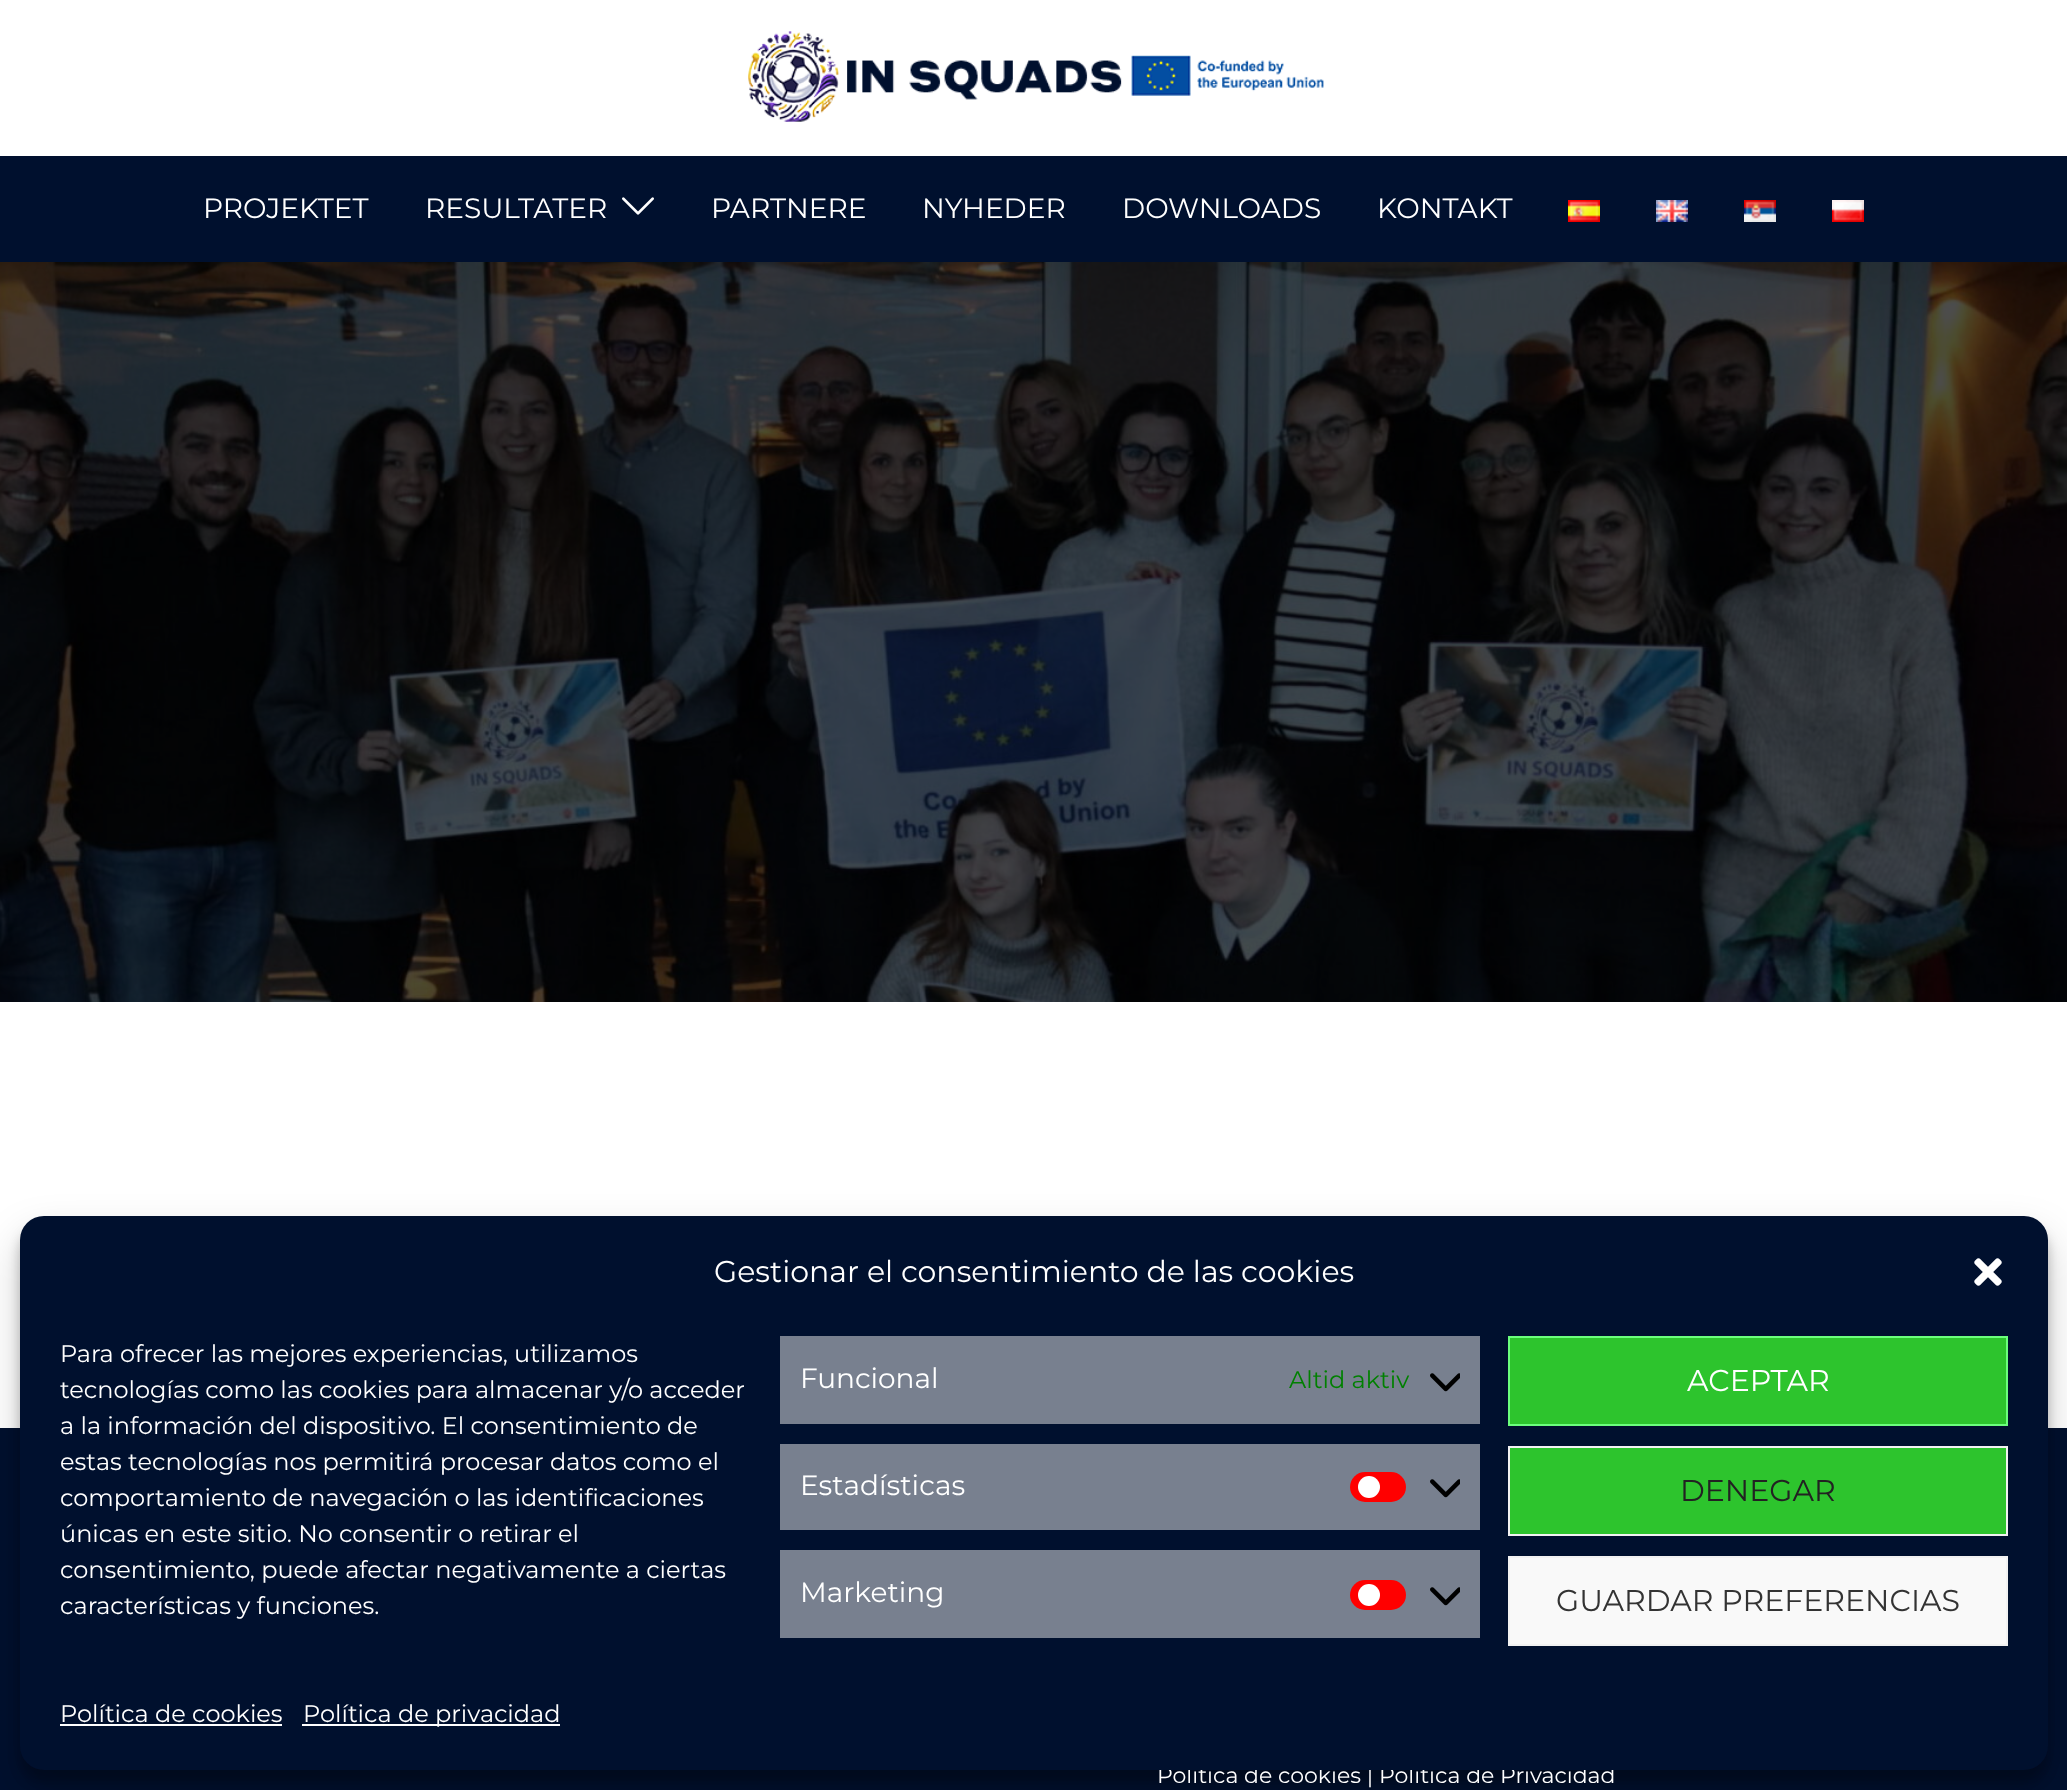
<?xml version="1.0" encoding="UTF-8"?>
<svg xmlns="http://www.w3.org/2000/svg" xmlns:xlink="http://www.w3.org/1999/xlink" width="2067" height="1790">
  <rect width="100%" height="100%" fill="#ffffff" />
  <image x="748" y="31" width="576" height="91" xlink:href="image1.png" />
  <rect y="156" width="2067" height="106" fill="#00102e" />
  <image x="622" y="197" width="32" height="18" xlink:href="image2.png" />
  <image x="1568" y="200" width="32" height="22" xlink:href="image3.png" />
  <image x="1656" y="200" width="32" height="22" xlink:href="image4.png" />
  <image x="1744" y="200" width="32" height="22" xlink:href="image5.png" />
  <image x="1832" y="200" width="32" height="22" xlink:href="image6.png" />
  <image x="0" y="262" width="2067" height="740" xlink:href="image7.png" />
  <rect y="1428" width="2067" height="362" fill="#00102e" />
  <rect x="20" y="1228" width="2028" height="554" rx="24" fill="#000000" fill-opacity="0.23" filter="blur(6px)" />
  <rect x="20" y="1236" width="2028" height="554" rx="24" fill="#000000" fill-opacity="0.19" filter="blur(20px)" />
  <text x="203" y="218" style="font-family: Montserrat; font-size: 28px; fill: #ffffff">PROJEKTET</text>
  <text x="425" y="218" style="font-family: Montserrat; font-size: 28px; fill: #ffffff">RESULTATER</text>
  <text x="711" y="218" style="font-family: Montserrat; font-size: 28px; fill: #ffffff">PARTNERE</text>
  <text x="922" y="218" style="font-family: Montserrat; font-size: 28px; fill: #ffffff">NYHEDER</text>
  <text x="1122" y="218" style="font-family: Montserrat; font-size: 28px; fill: #ffffff">DOWNLOADS</text>
  <text x="1377" y="218" style="font-family: Montserrat; font-size: 28px; fill: #ffffff">KONTAKT</text>
  <text x="1157" y="1783" style="font-family: Montserrat; font-size: 22px; fill: #ffffff">Política de cookies | Política de Privacidad</text>
  <rect x="20" y="1216" width="2028" height="554" rx="24" fill="#00102e" />
  <text x="714" y="1282" style="font-family: Montserrat; font-size: 30px; fill: #ffffff">Gestionar el consentimiento de las cookies</text>
  <image x="1974" y="1258" width="28" height="28" xlink:href="image8.png" />
  <text x="60" y="1362" style="font-family: Montserrat; font-size: 24px; fill: #ffffff">Para ofrecer las mejores experiencias, utilizamos</text>
  <text x="60" y="1398" style="font-family: Montserrat; font-size: 24px; fill: #ffffff">tecnologías como las cookies para almacenar y/o acceder</text>
  <text x="60" y="1434" style="font-family: Montserrat; font-size: 24px; fill: #ffffff">a la información del dispositivo. El consentimiento de</text>
  <text x="60" y="1470" style="font-family: Montserrat; font-size: 24px; fill: #ffffff">estas tecnologías nos permitirá procesar datos como el</text>
  <text x="60" y="1506" style="font-family: Montserrat; font-size: 24px; fill: #ffffff">comportamiento de navegación o las identificaciones</text>
  <text x="60" y="1542" style="font-family: Montserrat; font-size: 24px; fill: #ffffff">únicas en este sitio. No consentir o retirar el</text>
  <text x="60" y="1578" style="font-family: Montserrat; font-size: 24px; fill: #ffffff">consentimiento, puede afectar negativamente a ciertas</text>
  <text x="60" y="1614" style="font-family: Montserrat; font-size: 24px; fill: #ffffff">características y funciones.</text>
  <rect x="780" y="1336" width="700" height="88" fill="#78808f" />
  <text x="800" y="1388" style="font-family: Montserrat; font-size: 28px; fill: #ffffff">Funcional</text>
  <text x="1289" y="1388" style="font-family: Montserrat; font-size: 24px; fill: #008000">Altid aktiv</text>
  <image x="1430" y="1373" width="30" height="19" xlink:href="image9.png" />
  <rect x="780" y="1444" width="700" height="86" fill="#78808f" />
  <text x="800" y="1495" style="font-family: Montserrat; font-size: 28px; fill: #ffffff">Estadísticas</text>
  <rect x="1350" y="1472" width="56" height="30" rx="15" fill="#ff0000" />
  <circle cx="1369" cy="1487" r="11" fill="#ffffff" />
  <image x="1430" y="1479" width="30" height="19" xlink:href="image9.png" />
  <rect x="780" y="1550" width="700" height="88" fill="#78808f" />
  <text x="800" y="1602" style="font-family: Montserrat; font-size: 28px; fill: #ffffff">Marketing</text>
  <rect x="1350" y="1580" width="56" height="30" rx="15" fill="#ff0000" />
  <circle cx="1369" cy="1595" r="11" fill="#ffffff" />
  <image x="1430" y="1587" width="30" height="19" xlink:href="image9.png" />
  <rect x="1509" y="1337" width="498" height="88" fill="#2dc42d" stroke="#6bff7c" stroke-width="2" />
  <text x="1687" y="1391" style="font-family: Montserrat; font-size: 30px; fill: #ffffff">ACEPTAR</text>
  <rect x="1509" y="1447" width="498" height="88" fill="#2dc42d" stroke="#f2f2f2" stroke-width="2" />
  <text x="1680" y="1501" style="font-family: Montserrat; font-size: 30px; fill: #222222">DENEGAR</text>
  <rect x="1509" y="1557" width="498" height="88" fill="#f9f9f9" stroke="#f2f2f2" stroke-width="2" />
  <text x="1556" y="1611" style="font-family: Montserrat; font-size: 30px; fill: #333333">GUARDAR PREFERENCIAS</text>
  <text x="60" y="1722" style="font-family: Montserrat; font-size: 24px; fill: #ffffff">Política de cookies</text>
  <rect x="60" y="1724" width="222" height="2" fill="#ffffff" />
  <rect x="302" y="1724" width="258" height="2" fill="#ffffff" />
  <text x="303" y="1722" style="font-family: Montserrat; font-size: 24px; fill: #ffffff">Política de privacidad</text>
</svg>
